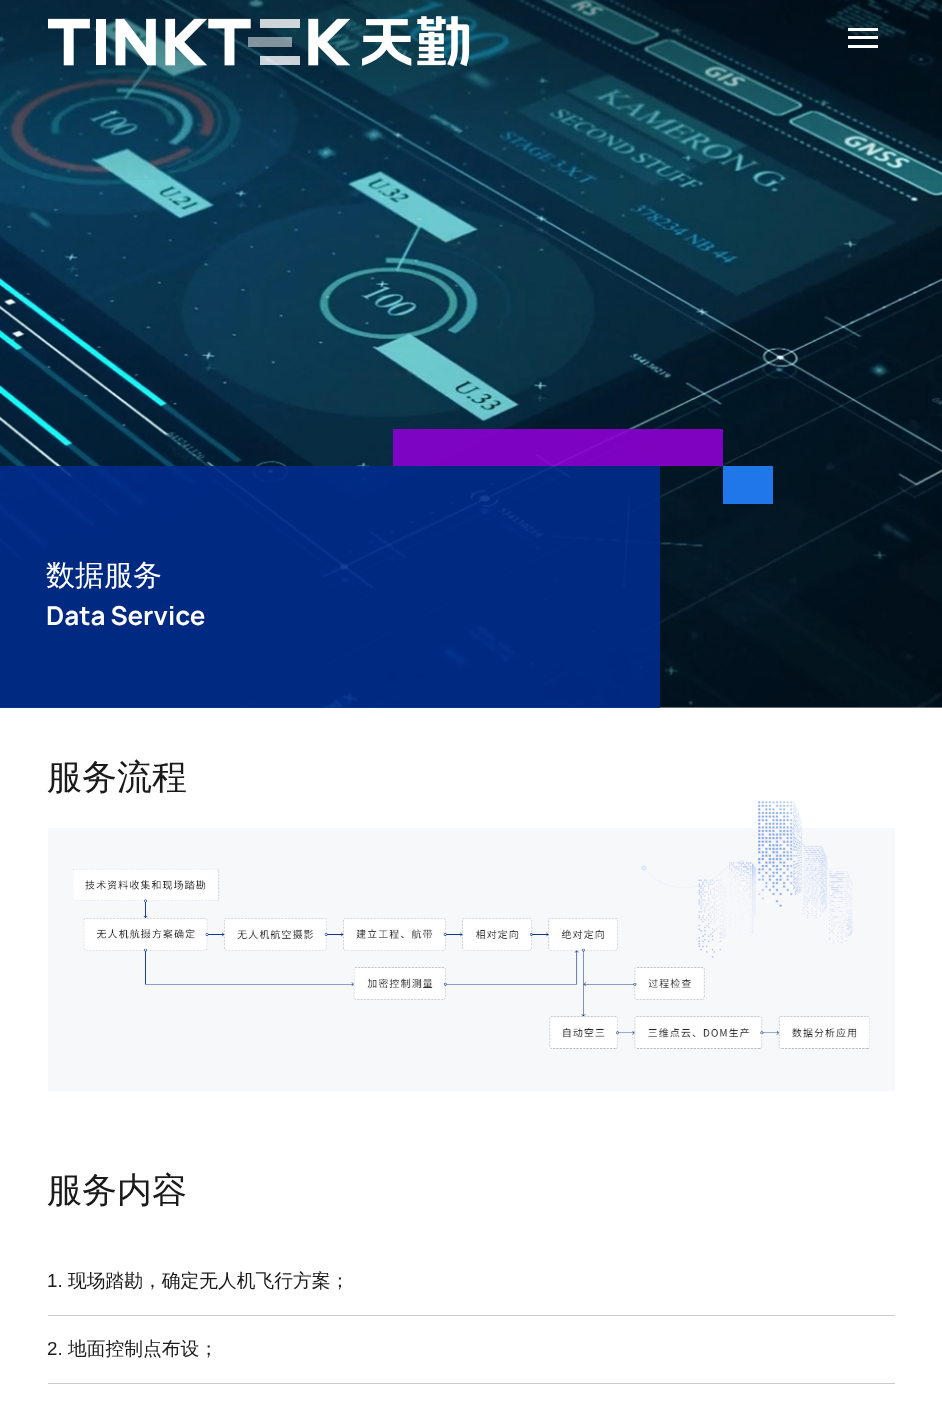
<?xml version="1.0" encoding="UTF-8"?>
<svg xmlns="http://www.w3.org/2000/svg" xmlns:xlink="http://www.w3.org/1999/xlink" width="942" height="1403">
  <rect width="100%" height="100%" fill="#ffffff" />
  <rect y="707" width="942" height="1" fill="#cccccc" />
  <image x="0" y="0" width="942" height="708" xlink:href="image2.png" />
  <image x="0" y="0" width="942" height="180" xlink:href="image3.png" />
  <image x="48" y="16" width="422" height="51" xlink:href="image1.png" />
  <rect x="848" y="36" width="30" height="3" fill="#ffffff" />
  <rect x="848" y="28" width="30" height="3" fill="#ffffff" />
  <rect x="848" y="45" width="30" height="3" fill="#ffffff" />
  <rect x="393" y="429" width="330" height="37" fill="#8c00d2" fill-opacity="0.9" />
  <rect x="723" y="466" width="50" height="38" fill="#2382ff" fill-opacity="0.9" />
  <rect y="466" width="660" height="242" fill="#002b8c" fill-opacity="0.9" />
  <rect x="48" y="828" width="847" height="263" fill="#f7f8fa" />
  <image x="73" y="869" width="797" height="180" xlink:href="image5.png" />
  <image x="641" y="801" width="212" height="157" xlink:href="image4.png" />
  <rect x="48" y="1315" width="847" height="1" fill="#cccccc" />
  <rect x="48" y="1383" width="847" height="1" fill="#cccccc" />
  <text x="46" y="585" style="font-family: WenQuanYi Zen Hei; font-size: 29px; font-weight: 500; fill: #ffffff">数据服务</text>
  <text x="46" y="625" style="font-family: 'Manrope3'; font-size: 25px; font-weight: bold; fill: #ffffff">Data Service</text>
  <text x="47" y="789" style="font-family: WenQuanYi Zen Hei; font-size: 35px; font-weight: 500; fill: #1a1a1a">服务流程</text>
  <text x="47" y="1202" style="font-family: WenQuanYi Zen Hei; font-size: 35px; font-weight: 500; fill: #1a1a1a">服务内容</text>
  <text x="47" y="1287" style="font-family: Liberation Sans; font-size: 18.75px; fill: #1a1a1a">1.</text>
  <text x="68" y="1287" style="font-family: WenQuanYi Zen Hei; font-size: 18.75px; font-weight: 500; fill: #1a1a1a">现场踏勘，确定无人机飞行方案；</text>
  <text x="47" y="1355" style="font-family: Liberation Sans; font-size: 18.75px; fill: #1a1a1a">2.</text>
  <text x="68" y="1355" style="font-family: WenQuanYi Zen Hei; font-size: 18.75px; font-weight: 500; fill: #1a1a1a">地面控制点布设；</text>
</svg>
